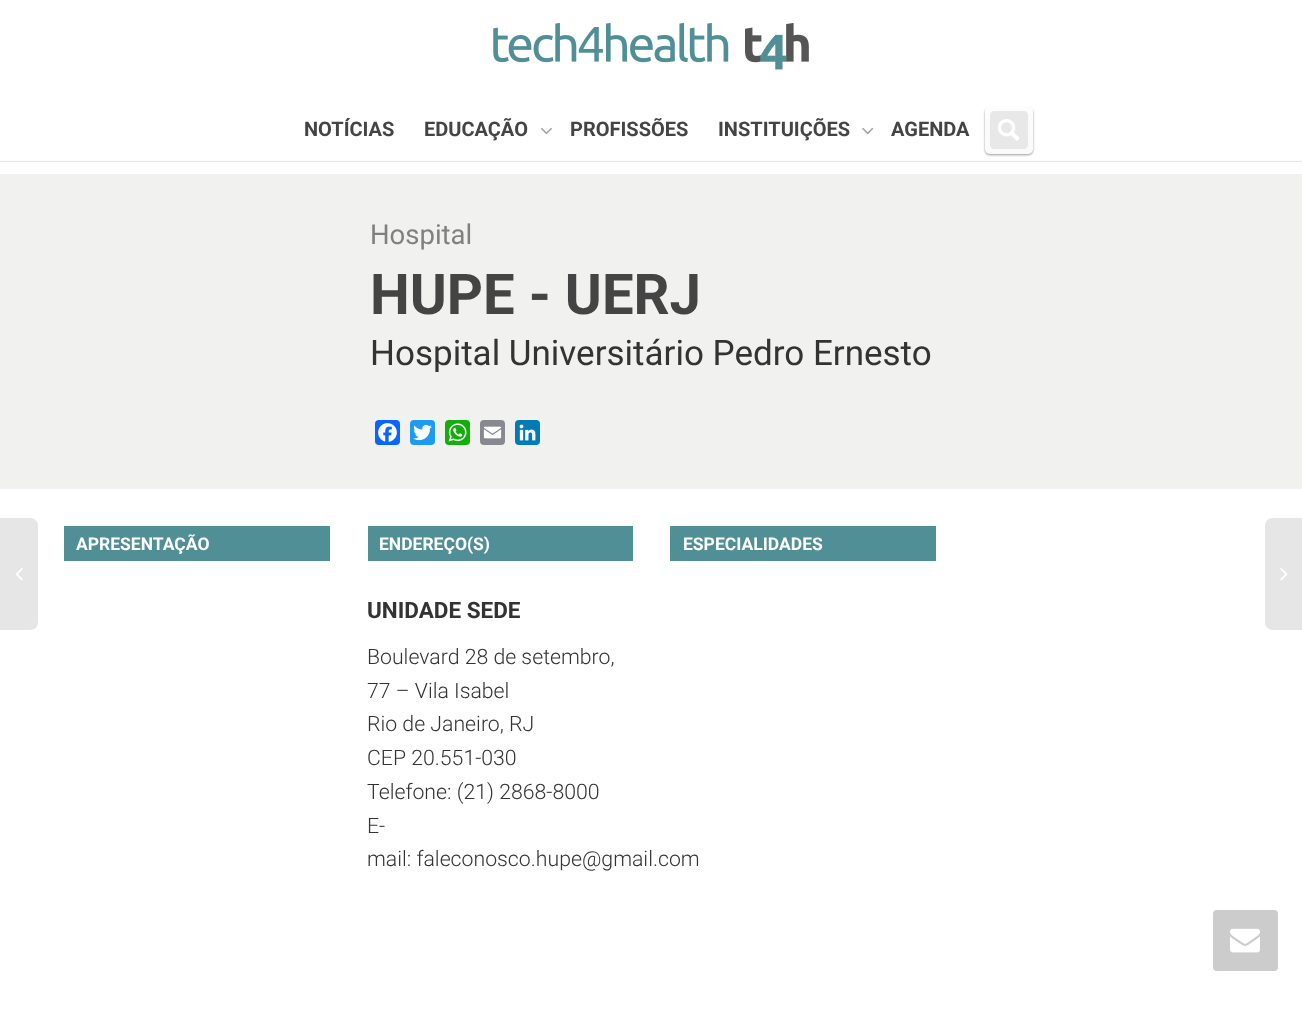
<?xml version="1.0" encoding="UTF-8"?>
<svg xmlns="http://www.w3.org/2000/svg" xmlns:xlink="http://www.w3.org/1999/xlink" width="1302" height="1033">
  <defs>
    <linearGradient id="g1" gradientUnits="userSpaceOnUse" x1="1011" y1="104" x2="1007" y2="156"><stop offset="0" stop-color="#fdfdfd" /><stop offset="1" stop-color="#fafafa" /></linearGradient>
  </defs>
  <rect width="100%" height="100%" fill="#ffffff" />
  <rect y="161" width="1302" height="1" fill="#e5e5e5" />
  <image x="493" y="23" width="316" height="47" xlink:href="image1.png" />
  <image x="541" y="127" width="11" height="8" xlink:href="image2.png" />
  <image x="862" y="127" width="12" height="8" xlink:href="image3.png" />
  <rect x="985" y="108" width="48" height="47" rx="5" fill="#999999" filter="blur(1px)" />
  <rect x="985" y="106" width="48" height="48" rx="5" fill="url(#g1)" />
  <path d="M 994 111 h 30 c 2 0 4 2 4 4 v 30 c 0 2 -2 4 -4 4 h -30 c -2 0 -4 -2 -4 -4 v -30 c 0 -2 2 -4 4 -4 z" fill="#e8e8e8" />
  <image x="997" y="119" width="23" height="22" xlink:href="image4.png" />
  <rect y="174" width="1302" height="315" fill="#f1f1ef" />
  <rect x="375" y="420" width="25" height="25" rx="4" fill="#0866ff" />
  <image x="378" y="423" width="19" height="19" xlink:href="image5.png" />
  <rect x="410" y="420" width="25" height="25" rx="4" fill="#1d9bf0" />
  <image x="413" y="424" width="19" height="17" xlink:href="image6.png" />
  <rect x="445" y="420" width="25" height="25" rx="4" fill="#12af0a" />
  <image x="448" y="423" width="19" height="19" xlink:href="image7.png" />
  <rect x="480" y="420" width="25" height="25" rx="4" fill="#888990" />
  <image x="483" y="426" width="19" height="13" xlink:href="image8.png" />
  <rect x="515" y="420" width="25" height="25" rx="4" fill="#007bb5" />
  <image x="519" y="424" width="17" height="17" xlink:href="image9.png" />
  <rect x="64" y="526" width="266" height="35" fill="#518f96" />
  <rect x="368" y="526" width="265" height="35" fill="#518f96" />
  <rect x="670" y="526" width="266" height="35" fill="#518f96" />
  <path d="M -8 518 h 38 c 4.5 0 8 3.5 8 8 v 96 c 0 4.5 -3.5 8 -8 8 h -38 z" fill="#e6e6e6" />
  <image x="15" y="568" width="8" height="13" xlink:href="image10.png" />
  <path d="M 1273 518 h 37 v 112 h -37 c -4.5 0 -8 -3.5 -8 -8 v -96 c 0 -4.5 3.5 -8 8 -8 z" fill="#e6e6e6" />
  <image x="1280" y="568" width="8" height="13" xlink:href="image11.png" />
  <rect x="1213" y="910" width="65" height="61" rx="4" fill="#cccccc" />
  <image x="1230" y="928" width="30" height="25" xlink:href="image12.png" />
  <text x="304" y="136" style="font-family: Roboto; font-size: 20px; font-weight: bold; fill: #444444">NOTÍCIAS</text>
  <text x="424" y="136" style="font-family: Roboto; font-size: 20px; font-weight: bold; fill: #444444">EDUCAÇÃO</text>
  <text x="570" y="136" style="font-family: Roboto; font-size: 20px; font-weight: bold; fill: #444444">PROFISSÕES</text>
  <text x="718" y="136" style="font-family: Roboto; font-size: 20px; font-weight: bold; fill: #444444">INSTITUIÇÕES</text>
  <text x="891" y="136" style="font-family: Roboto; font-size: 20px; font-weight: bold; fill: #444444">AGENDA</text>
  <text x="370" y="244" style="font-family: Roboto; font-size: 27.5px; fill: #808080">Hospital</text>
  <text x="370" y="314" style="font-family: Roboto; font-size: 56.25px; font-weight: bold; fill: #444444">HUPE - UERJ</text>
  <text x="370" y="365" style="font-family: Roboto; font-size: 35px; fill: #333333">Hospital Universitário Pedro Ernesto</text>
  <text x="76" y="550" style="font-family: Roboto; font-size: 17.5px; font-weight: bold; fill: #ffffff">APRESENTAÇÃO</text>
  <text x="379" y="550" style="font-family: Roboto; font-size: 17.5px; font-weight: bold; fill: #ffffff">ENDEREÇO(S)</text>
  <text x="367" y="618" style="font-family: Roboto; font-size: 22.5px; font-weight: bold; fill: #333333">UNIDADE SEDE</text>
  <text x="367" y="664" style="font-family: Roboto; font-size: 21.25px; font-weight: 300; fill: #333333">Boulevard 28 de setembro,</text>
  <text x="367" y="698" style="font-family: Roboto; font-size: 21.25px; font-weight: 300; fill: #333333">77 – Vila Isabel</text>
  <text x="367" y="731" style="font-family: Roboto; font-size: 21.25px; font-weight: 300; fill: #333333">Rio de Janeiro, RJ</text>
  <text x="367" y="765" style="font-family: Roboto; font-size: 21.25px; font-weight: 300; fill: #333333">CEP 20.551-030</text>
  <text x="367" y="799" style="font-family: Roboto; font-size: 21.25px; font-weight: 300; fill: #333333">Telefone: (21) 2868-8000</text>
  <text x="367" y="833" style="font-family: Roboto; font-size: 21.25px; font-weight: 300; fill: #333333">E-</text>
  <text x="367" y="866" style="font-family: Roboto; font-size: 21.25px; font-weight: 300; fill: #333333">mail: faleconosco.hupe@gmail.com</text>
  <text x="683" y="550" style="font-family: Roboto; font-size: 17.5px; font-weight: bold; fill: #ffffff">ESPECIALIDADES</text>
</svg>
